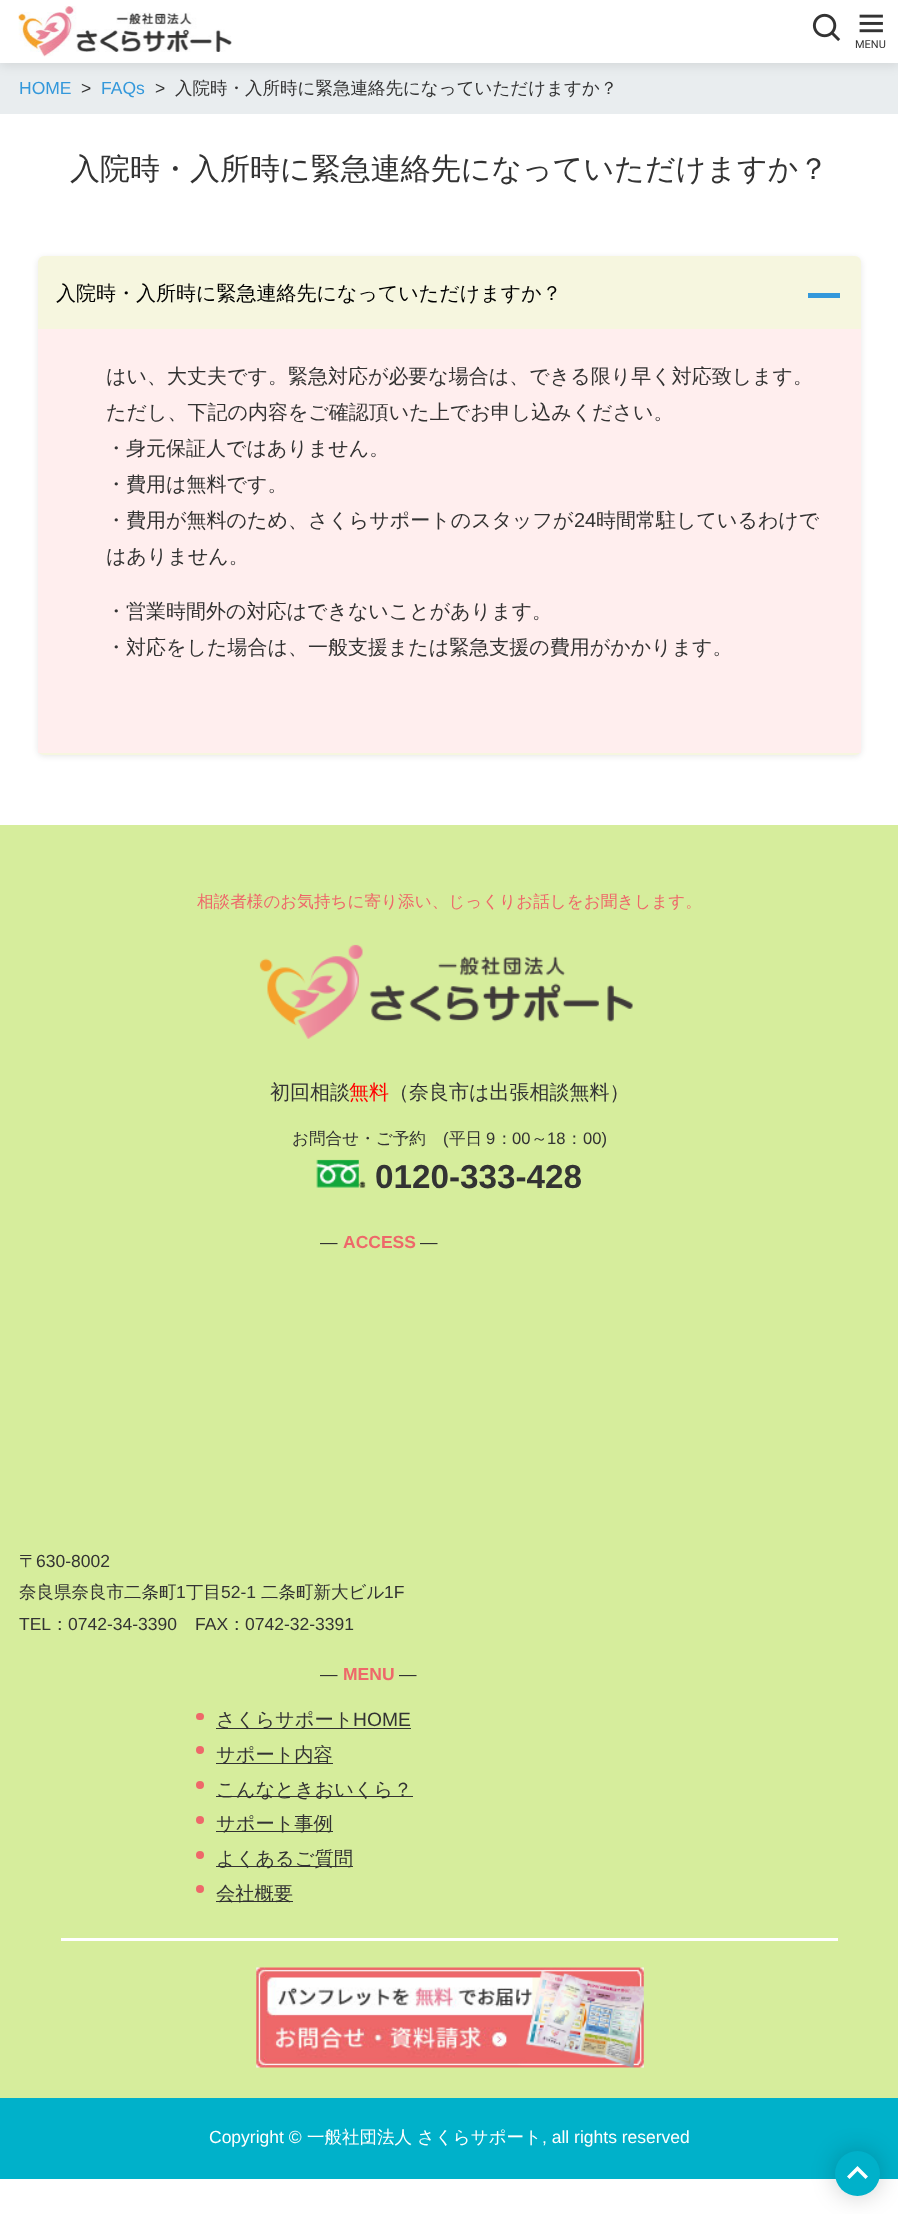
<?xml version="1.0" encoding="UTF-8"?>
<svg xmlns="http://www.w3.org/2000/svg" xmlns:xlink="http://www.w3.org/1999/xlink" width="898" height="2214">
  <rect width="100%" height="100%" fill="#ffffff" />
  <rect y="63" width="898" height="51" fill="#e9edef" />
  <rect y="3" width="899" height="62" fill="#000000" fill-opacity="0.1" filter="blur(6px)" />
  <rect width="898" height="63" fill="#ffffff" />
  <image x="18" y="6" width="214" height="51" xlink:href="image1.png" />
  <image x="812" y="13" width="29" height="29" xlink:href="image2.png" />
  <image x="859" y="14" width="24" height="19" xlink:href="image3.png" />
  <rect x="38" y="258" width="823" height="498" rx="6" fill="#000000" fill-opacity="0.1" filter="blur(3px)" />
  <rect x="38" y="256" width="823" height="499" rx="6" fill="#f6f6df" />
  <rect x="808" y="293" width="32" height="5" fill="#3398db" />
  <rect x="38" y="329" width="823" height="424" fill="#ffeeee" />
  <rect y="825" width="898" height="1273" fill="#d6ed9c" />
  <image x="259" y="944" width="374" height="95" xlink:href="image4.png" />
  <image x="316" y="1159" width="50" height="29" xlink:href="image5.png" />
  <rect x="196" y="1713" width="8" height="7" rx="3.5" fill="#ee686a" />
  <rect x="216" y="1728" width="195" height="1" fill="#333333" />
  <circle cx="200" cy="1750" r="4" fill="#ee686a" />
  <rect x="216" y="1763" width="117" height="1" fill="#333333" />
  <circle cx="200" cy="1785" r="4" fill="#ee686a" />
  <rect x="216" y="1796" width="197" height="1" fill="#333333" />
  <circle cx="200" cy="1820" r="4" fill="#ee686a" />
  <rect x="216" y="1831" width="117" height="1" fill="#333333" />
  <circle cx="200" cy="1855" r="4" fill="#ee686a" />
  <rect x="216" y="1866" width="137" height="1" fill="#333333" />
  <circle cx="200" cy="1889" r="4" fill="#ee686a" />
  <rect x="216" y="1901" width="77" height="1" fill="#333333" />
  <rect x="61" y="1938" width="777" height="3" fill="#ffffff" />
  <image x="256" y="1967" width="388" height="101" xlink:href="image6.png" />
  <rect y="2098" width="898" height="81" fill="#00b1ca" />
  <rect x="835" y="2151" width="45" height="45" rx="22.5" fill="#000000" fill-opacity="0.2" filter="blur(12.5px)" />
  <circle cx="857.5" cy="2173.5" r="22.5" fill="#00b1ca" />
  <path d="M 847 2176.5 l 2.5 2.5 l 8 -8 l 8 8 l 2.5 -2.5 l -10.5 -10.5 z" fill="#ffffff" />
  <text x="855" y="48" style="font-family: Roboto; font-size: 11px; fill: #333333">MENU</text>
  <text x="19" y="94" style="font-family: Liberation Sans; font-size: 17.5px; fill: #3398db">HOME</text>
  <text x="81" y="94" style="font-family: Liberation Sans; font-size: 17.5px; fill: #333333">&gt;</text>
  <text x="101" y="94" style="font-family: Liberation Sans; font-size: 17.5px; fill: #3398db">FAQs</text>
  <text x="155" y="94" style="font-family: Liberation Sans; font-size: 17.5px; fill: #333333">&gt;</text>
  <text x="175" y="94" style="font-family: WenQuanYi Zen Hei; font-size: 17.5px; font-weight: 500; fill: #333333">入院時・入所時に緊急連絡先になっていただけますか？</text>
  <text x="70" y="179" style="font-family: WenQuanYi Zen Hei; font-size: 30px; font-weight: 500; fill: #333333">入院時・入所時に緊急連絡先になっていただけますか？</text>
  <text x="56" y="300" style="font-family: WenQuanYi Zen Hei; font-size: 20px; font-weight: 500; fill: #000000">入院時・入所時に緊急連絡先になっていただけますか？</text>
  <text x="106" y="383" style="font-family: WenQuanYi Zen Hei; font-size: 20px; font-weight: 500; fill: #333333">はい、大丈夫です。緊急対応が必要な場合は、できる限り早く対応致します。</text>
  <text x="106" y="419" style="font-family: WenQuanYi Zen Hei; font-size: 20px; font-weight: 500; fill: #333333">ただし、下記の内容をご確認頂いた上でお申し込みください。</text>
  <text x="106" y="455" style="font-family: WenQuanYi Zen Hei; font-size: 20px; font-weight: 500; fill: #333333">・身元保証人ではありません。</text>
  <text x="106" y="491" style="font-family: WenQuanYi Zen Hei; font-size: 20px; font-weight: 500; fill: #333333">・費用は無料です。</text>
  <text x="106" y="527" style="font-family: WenQuanYi Zen Hei; font-size: 20px; font-weight: 500; fill: #333333">・費用が無料のため、さくらサポートのスタッフが</text>
  <text x="574" y="527" style="font-family: Liberation Sans; font-size: 20px; fill: #333333">24</text>
  <text x="596" y="527" style="font-family: WenQuanYi Zen Hei; font-size: 20px; font-weight: 500; fill: #333333">時間常駐しているわけで</text>
  <text x="106" y="563" style="font-family: WenQuanYi Zen Hei; font-size: 20px; font-weight: 500; fill: #333333">はありません。</text>
  <text x="106" y="618" style="font-family: WenQuanYi Zen Hei; font-size: 20px; font-weight: 500; fill: #333333">・営業時間外の対応はできないことがあります。</text>
  <text x="106" y="654" style="font-family: WenQuanYi Zen Hei; font-size: 20px; font-weight: 500; fill: #333333">・対応をした場合は、一般支援または緊急支援の費用がかかります。</text>
  <text x="197" y="907" style="font-family: WenQuanYi Zen Hei; font-size: 16.6px; font-weight: 500; fill: #ee686a">相談者様のお気持ちに寄り添い、じっくりお話しをお聞きします。</text>
  <text x="270" y="1099" style="font-family: WenQuanYi Zen Hei; font-size: 20px; font-weight: 500; fill: #333333">初回相談</text>
  <text x="349" y="1099" style="font-family: WenQuanYi Zen Hei; font-size: 20px; font-weight: 500; fill: #ff0000">無料</text>
  <text x="389" y="1099" style="font-family: WenQuanYi Zen Hei; font-size: 20px; font-weight: 500; fill: #333333">（奈良市は出張相談無料）</text>
  <text x="292" y="1144" style="font-family: WenQuanYi Zen Hei; font-size: 16.6px; font-weight: 500; fill: #333333">お問合せ・ご予約</text>
  <text x="443" y="1144" style="font-family: Liberation Sans; font-size: 16.6px; fill: #333333">(</text>
  <text x="449" y="1144" style="font-family: WenQuanYi Zen Hei; font-size: 16.6px; font-weight: 500; fill: #333333">平日</text>
  <text x="486" y="1144" style="font-family: Liberation Sans; font-size: 16.6px; fill: #333333">9</text>
  <text x="496" y="1144" style="font-family: WenQuanYi Zen Hei; font-size: 16.6px; font-weight: 500; fill: #333333">：</text>
  <text x="512" y="1144" style="font-family: Liberation Sans; font-size: 16.6px; fill: #333333">00</text>
  <text x="531" y="1144" style="font-family: WenQuanYi Zen Hei; font-size: 16.6px; font-weight: 500; fill: #333333">～</text>
  <text x="547" y="1144" style="font-family: Liberation Sans; font-size: 16.6px; fill: #333333">18</text>
  <text x="566" y="1144" style="font-family: WenQuanYi Zen Hei; font-size: 16.6px; font-weight: 500; fill: #333333">：</text>
  <text x="583" y="1144" style="font-family: Liberation Sans; font-size: 16.6px; fill: #333333">00)</text>
  <text x="375" y="1188" style="font-family: Liberation Sans; font-size: 33.25px; font-weight: bold; fill: #333333">0120-333-428</text>
  <text x="320" y="1248" style="font-family: Liberation Sans; font-size: 17.5px; fill: #333333">—</text>
  <text x="343" y="1248" style="font-family: Liberation Sans; font-size: 17.5px; font-weight: bold; fill: #ee686a">ACCESS</text>
  <text x="420" y="1248" style="font-family: Liberation Sans; font-size: 17.5px; fill: #333333">—</text>
  <text x="19" y="1567" style="font-family: WenQuanYi Zen Hei; font-size: 17.5px; font-weight: 500; fill: #333333">〒</text>
  <text x="36" y="1567" style="font-family: Liberation Sans; font-size: 17.5px; fill: #333333">630-8002</text>
  <text x="19" y="1598" style="font-family: WenQuanYi Zen Hei; font-size: 17.5px; font-weight: 500; fill: #333333">奈良県奈良市二条町</text>
  <text x="176" y="1598" style="font-family: Liberation Sans; font-size: 17.5px; fill: #333333">1</text>
  <text x="186" y="1598" style="font-family: WenQuanYi Zen Hei; font-size: 17.5px; font-weight: 500; fill: #333333">丁目</text>
  <text x="221" y="1598" style="font-family: Liberation Sans; font-size: 17.5px; fill: #333333">52-1</text>
  <text x="261" y="1598" style="font-family: WenQuanYi Zen Hei; font-size: 17.5px; font-weight: 500; fill: #333333">二条町新大ビル</text>
  <text x="384" y="1598" style="font-family: Liberation Sans; font-size: 17.5px; fill: #333333">1F</text>
  <text x="19" y="1630" style="font-family: Liberation Sans; font-size: 17.5px; fill: #333333">TEL</text>
  <text x="51" y="1630" style="font-family: WenQuanYi Zen Hei; font-size: 17.5px; font-weight: 500; fill: #333333">：</text>
  <text x="68" y="1630" style="font-family: Liberation Sans; font-size: 17.5px; fill: #333333">0742-34-3390</text>
  <text x="195" y="1630" style="font-family: Liberation Sans; font-size: 17.5px; fill: #333333">FAX</text>
  <text x="228" y="1630" style="font-family: WenQuanYi Zen Hei; font-size: 17.5px; font-weight: 500; fill: #333333">：</text>
  <text x="245" y="1630" style="font-family: Liberation Sans; font-size: 17.5px; fill: #333333">0742-32-3391</text>
  <text x="320" y="1680" style="font-family: Liberation Sans; font-size: 17.5px; fill: #333333">—</text>
  <text x="343" y="1680" style="font-family: Liberation Sans; font-size: 17.5px; font-weight: bold; fill: #ee686a">MENU</text>
  <text x="399" y="1680" style="font-family: Liberation Sans; font-size: 17.5px; fill: #333333">—</text>
  <text x="216" y="1726" style="font-family: WenQuanYi Zen Hei; font-size: 19.25px; font-weight: 500; fill: #333333">さくらサポート</text>
  <text x="353" y="1726" style="font-family: Liberation Sans; font-size: 19.25px; fill: #333333">HOME</text>
  <text x="216" y="1761" style="font-family: WenQuanYi Zen Hei; font-size: 19.25px; font-weight: 500; fill: #333333">サポート内容</text>
  <text x="216" y="1796" style="font-family: WenQuanYi Zen Hei; font-size: 19.25px; font-weight: 500; fill: #333333">こんなときおいくら？</text>
  <text x="216" y="1830" style="font-family: WenQuanYi Zen Hei; font-size: 19.25px; font-weight: 500; fill: #333333">サポート事例</text>
  <text x="216" y="1865" style="font-family: WenQuanYi Zen Hei; font-size: 19.25px; font-weight: 500; fill: #333333">よくあるご質問</text>
  <text x="216" y="1900" style="font-family: WenQuanYi Zen Hei; font-size: 19.25px; font-weight: 500; fill: #333333">会社概要</text>
  <text x="209" y="2143" style="font-family: Liberation Sans; font-size: 17.5px; fill: #ffffff">Copyright ©</text>
  <text x="307" y="2143" style="font-family: WenQuanYi Zen Hei; font-size: 17.5px; font-weight: 500; fill: #ffffff">一般社団法人</text>
  <text x="417" y="2143" style="font-family: WenQuanYi Zen Hei; font-size: 17.5px; font-weight: 500; fill: #ffffff">さくらサポート</text>
  <text x="542" y="2143" style="font-family: Liberation Sans; font-size: 17.5px; fill: #ffffff">, all rights reserved</text>
</svg>
